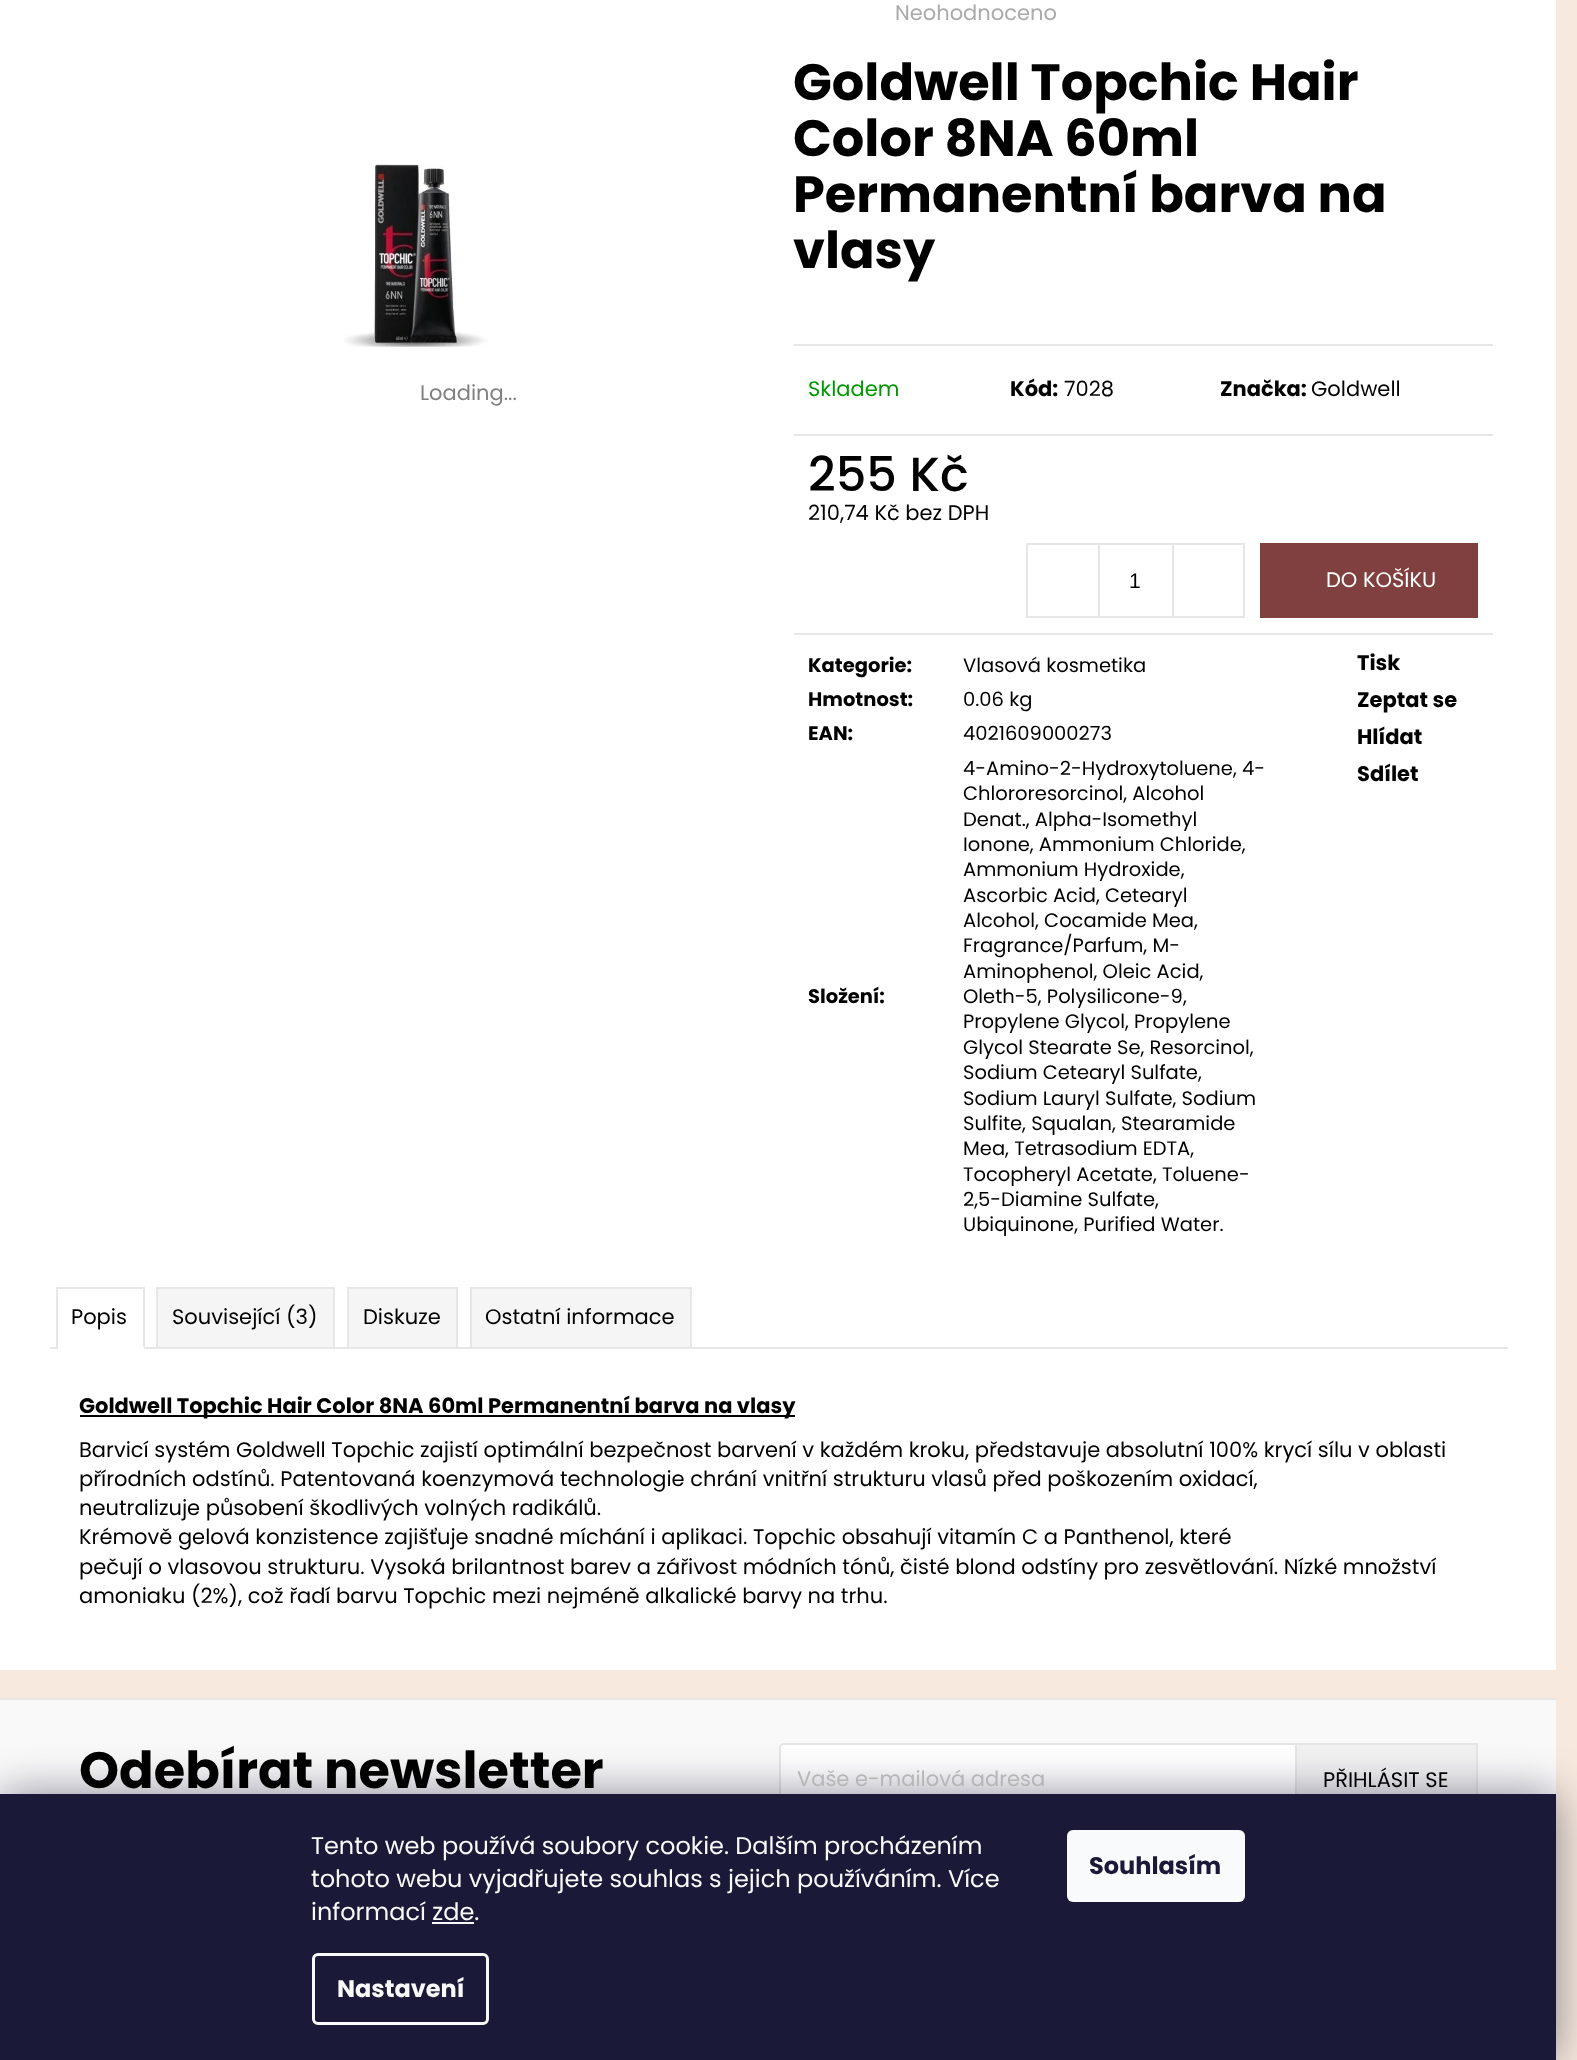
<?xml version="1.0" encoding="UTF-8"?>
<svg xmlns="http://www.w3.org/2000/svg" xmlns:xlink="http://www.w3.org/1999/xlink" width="1577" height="2060">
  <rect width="100%" height="100%" fill="#f7e9dd" />
  <rect width="1556" height="1670" fill="#ffffff" />
  <image x="344" y="164" width="144" height="184" xlink:href="image1.png" />
  <rect x="794" y="344" width="699" height="2" fill="#e7e7e7" />
  <rect x="794" y="434" width="699" height="2" fill="#e7e7e7" />
  <rect x="794" y="633" width="699" height="2" fill="#e7e7e7" />
  <rect x="1027" y="544" width="217" height="73" fill="none" stroke="#e6e6e6" stroke-width="2" />
  <rect x="1098" y="545" width="2" height="72" fill="#e6e6e6" />
  <rect x="1172" y="545" width="2" height="72" fill="#e6e6e6" />
  <rect x="1260" y="543" width="218" height="75" fill="#804040" />
  <rect x="50" y="1347" width="1458" height="2" fill="#e7e7e7" />
  <rect x="56" y="1287" width="88" height="2" fill="#e7e7e7" />
  <rect x="143" y="1287" width="2" height="62" fill="#e7e7e7" />
  <rect x="56" y="1347" width="88" height="2" fill="#ffffff" />
  <rect x="56" y="1287" width="2" height="62" fill="#e7e7e7" />
  <rect x="157" y="1288" width="177" height="60" fill="#f5f5f5" stroke="#e7e7e7" stroke-width="2" />
  <rect x="348" y="1288" width="109" height="60" fill="#f5f5f5" stroke="#e7e7e7" stroke-width="2" />
  <rect x="471" y="1288" width="220" height="60" fill="#f5f5f5" stroke="#e7e7e7" stroke-width="2" />
  <rect x="80" y="1415" width="715" height="2" fill="#000000" />
  <rect y="1700" width="1556" height="94" fill="#f9f9f9" />
  <rect y="1698" width="1556" height="2" fill="#e6e6e6" />
  <rect x="780" y="1744" width="697" height="70" rx="4" fill="#ffffff" stroke="#e6e6e6" stroke-width="2" />
  <rect x="1297" y="1745" width="179" height="49" fill="#f2f2f2" />
  <rect x="1296" y="1744" width="181" height="70" fill="none" stroke="#e6e6e6" stroke-width="2" />
  <rect y="1794" width="1556" height="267" fill="#1b1939" fill-opacity="0.5" filter="blur(22.5px)" />
  <rect y="1794" width="1556" height="266" fill="#1a1937" />
  <rect x="432" y="1922" width="42" height="2" fill="#f8fafb" />
  <rect x="313.5" y="1954.5" width="174" height="69" rx="4.5" fill="none" stroke="#f8fafb" stroke-width="3" />
  <rect x="1067" y="1830" width="178" height="72" rx="6" fill="#f8fafb" />
  <text x="420" y="400" style="font-family: Poppins; font-size: 21px; fill: #808080">Loading...</text>
  <text x="895" y="20" style="font-family: Poppins; font-size: 21px; fill: #aaaaaa">Neohodnoceno</text>
  <text x="793" y="100" style="font-family: Poppins; font-size: 51px; font-weight: bold; fill: #000000">Goldwell Topchic Hair</text>
  <text x="793" y="156" style="font-family: Poppins; font-size: 51px; font-weight: bold; fill: #000000">Color 8NA 60ml</text>
  <text x="793" y="212" style="font-family: Poppins; font-size: 51px; font-weight: bold; fill: #000000">Permanentní barva na</text>
  <text x="793" y="268" style="font-family: Poppins; font-size: 51px; font-weight: bold; fill: #000000">vlasy</text>
  <text x="808" y="396" style="font-family: Poppins; font-size: 21px; fill: #009901">Skladem</text>
  <text x="1010" y="396" style="font-family: Poppins; font-size: 21px; font-weight: bold; fill: #000000">Kód:</text>
  <text x="1064" y="396" style="font-family: Poppins; font-size: 21px; fill: #000000">7028</text>
  <text x="1220" y="396" style="font-family: Poppins; font-size: 21px; font-weight: bold; fill: #000000">Značka:</text>
  <text x="1311" y="396" style="font-family: Poppins; font-size: 21px; fill: #000000">Goldwell</text>
  <text x="808" y="491" style="font-family: Poppins; font-size: 48px; font-weight: 500; fill: #000000">255 Kč</text>
  <text x="808" y="520" style="font-family: Poppins; font-size: 21px; fill: #000000">210,74 Kč bez DPH</text>
  <text x="1129" y="588" style="font-family: Liberation Sans; font-size: 21px; fill: #000000">1</text>
  <text x="1326" y="587" style="font-family: Poppins; font-size: 21px; fill: #ffffff">DO KOŠÍKU</text>
  <text x="808" y="672" style="font-family: Poppins; font-size: 19.5px; font-weight: bold; fill: #000000">Kategorie:</text>
  <text x="963" y="672" style="font-family: Poppins; font-size: 19.5px; fill: #000000">Vlasová kosmetika</text>
  <text x="808" y="706" style="font-family: Poppins; font-size: 19.5px; font-weight: bold; fill: #000000">Hmotnost:</text>
  <text x="963" y="706" style="font-family: Poppins; font-size: 19.5px; fill: #000000">0.06 kg</text>
  <text x="808" y="740" style="font-family: Poppins; font-size: 19.5px; font-weight: bold; fill: #000000">EAN:</text>
  <text x="963" y="740" style="font-family: Poppins; font-size: 19.5px; fill: #000000">4021609000273</text>
  <text x="808" y="1003" style="font-family: Poppins; font-size: 19.5px; font-weight: bold; fill: #000000">Složení:</text>
  <text x="963" y="775" style="font-family: Poppins; font-size: 19.5px; fill: #000000">4-Amino-2-Hydroxytoluene, 4-</text>
  <text x="963" y="800" style="font-family: Poppins; font-size: 19.5px; fill: #000000">Chlororesorcinol, Alcohol</text>
  <text x="963" y="826" style="font-family: Poppins; font-size: 19.5px; fill: #000000">Denat., Alpha-Isomethyl</text>
  <text x="963" y="851" style="font-family: Poppins; font-size: 19.5px; fill: #000000">Ionone, Ammonium Chloride,</text>
  <text x="963" y="876" style="font-family: Poppins; font-size: 19.5px; fill: #000000">Ammonium Hydroxide,</text>
  <text x="963" y="902" style="font-family: Poppins; font-size: 19.5px; fill: #000000">Ascorbic Acid, Cetearyl</text>
  <text x="963" y="927" style="font-family: Poppins; font-size: 19.5px; fill: #000000">Alcohol, Cocamide Mea,</text>
  <text x="963" y="952" style="font-family: Poppins; font-size: 19.5px; fill: #000000">Fragrance/Parfum, M-</text>
  <text x="963" y="978" style="font-family: Poppins; font-size: 19.5px; fill: #000000">Aminophenol, Oleic Acid,</text>
  <text x="963" y="1003" style="font-family: Poppins; font-size: 19.5px; fill: #000000">Oleth-5, Polysilicone-9,</text>
  <text x="963" y="1028" style="font-family: Poppins; font-size: 19.5px; fill: #000000">Propylene Glycol, Propylene</text>
  <text x="963" y="1054" style="font-family: Poppins; font-size: 19.5px; fill: #000000">Glycol Stearate Se, Resorcinol,</text>
  <text x="963" y="1079" style="font-family: Poppins; font-size: 19.5px; fill: #000000">Sodium Cetearyl Sulfate,</text>
  <text x="963" y="1105" style="font-family: Poppins; font-size: 19.5px; fill: #000000">Sodium Lauryl Sulfate, Sodium</text>
  <text x="963" y="1130" style="font-family: Poppins; font-size: 19.5px; fill: #000000">Sulfite, Squalan, Stearamide</text>
  <text x="963" y="1155" style="font-family: Poppins; font-size: 19.5px; fill: #000000">Mea, Tetrasodium EDTA,</text>
  <text x="963" y="1181" style="font-family: Poppins; font-size: 19.5px; fill: #000000">Tocopheryl Acetate, Toluene-</text>
  <text x="963" y="1206" style="font-family: Poppins; font-size: 19.5px; fill: #000000">2,5-Diamine Sulfate,</text>
  <text x="963" y="1231" style="font-family: Poppins; font-size: 19.5px; fill: #000000">Ubiquinone, Purified Water.</text>
  <text x="1357" y="670" style="font-family: Poppins; font-size: 21px; font-weight: bold; fill: #000000">Tisk</text>
  <text x="1357" y="707" style="font-family: Poppins; font-size: 21px; font-weight: bold; fill: #000000">Zeptat se</text>
  <text x="1357" y="744" style="font-family: Poppins; font-size: 21px; font-weight: bold; fill: #000000">Hlídat</text>
  <text x="1357" y="781" style="font-family: Poppins; font-size: 21px; font-weight: bold; fill: #000000">Sdílet</text>
  <text x="71" y="1324" style="font-family: Poppins; font-size: 21px; fill: #000000">Popis</text>
  <text x="172" y="1324" style="font-family: Poppins; font-size: 21px; fill: #000000">Související (3)</text>
  <text x="363" y="1324" style="font-family: Poppins; font-size: 21px; fill: #000000">Diskuze</text>
  <text x="485" y="1324" style="font-family: Poppins; font-size: 21px; fill: #000000">Ostatní informace</text>
  <text x="79" y="1413" style="font-family: Poppins; font-size: 21px; font-weight: bold; fill: #000000">Goldwell Topchic Hair Color 8NA 60ml Permanentní barva na vlasy</text>
  <text x="79" y="1457" style="font-family: Poppins; font-size: 21px; fill: #000000">Barvicí systém Goldwell Topchic zajistí optimální bezpečnost barvení v každém kroku, představuje absolutní 100% krycí sílu v oblasti</text>
  <text x="79" y="1486" style="font-family: Poppins; font-size: 21px; fill: #000000">přírodních odstínů. Patentovaná koenzymová technologie chrání vnitřní strukturu vlasů před poškozením oxidací,</text>
  <text x="79" y="1515" style="font-family: Poppins; font-size: 21px; fill: #000000">neutralizuje působení škodlivých volných radikálů.</text>
  <text x="79" y="1544" style="font-family: Poppins; font-size: 21px; fill: #000000">Krémově gelová konzistence zajišťuje snadné míchání i aplikaci. Topchic obsahují vitamín C a Panthenol, které</text>
  <text x="79" y="1574" style="font-family: Poppins; font-size: 21px; fill: #000000">pečují o vlasovou strukturu. Vysoká brilantnost barev a zářivost módních tónů, čisté blond odstíny pro zesvětlování. Nízké množství</text>
  <text x="79" y="1603" style="font-family: Poppins; font-size: 21px; fill: #000000">amoniaku (2%), což řadí barvu Topchic mezi nejméně alkalické barvy na trhu.</text>
  <text x="79" y="1788" style="font-family: Poppins; font-size: 51px; font-weight: bold; fill: #000000">Odebírat newsletter</text>
  <text x="797" y="1786" style="font-family: Poppins; font-size: 21px; fill: #b6b6b6">Vaše e-mailová adresa</text>
  <text x="1323" y="1787" style="font-family: Poppins; font-size: 21px; fill: #000000">PŘIHLÁSIT SE</text>
  <text x="311" y="1854" style="font-family: Poppins; font-size: 24px; fill: #f8fafb">Tento web používá soubory cookie. Dalším procházením</text>
  <text x="311" y="1887" style="font-family: Poppins; font-size: 24px; fill: #f8fafb">tohoto webu vyjadřujete souhlas s jejich používáním. Více</text>
  <text x="311" y="1920" style="font-family: Poppins; font-size: 24px; fill: #f8fafb">informací zde.</text>
  <text x="337" y="1997" style="font-family: Poppins; font-size: 24px; font-weight: bold; fill: #f8fafb">Nastavení</text>
  <text x="1089" y="1874" style="font-family: Poppins; font-size: 24px; font-weight: bold; fill: #1a1937">Souhlasím</text>
</svg>
